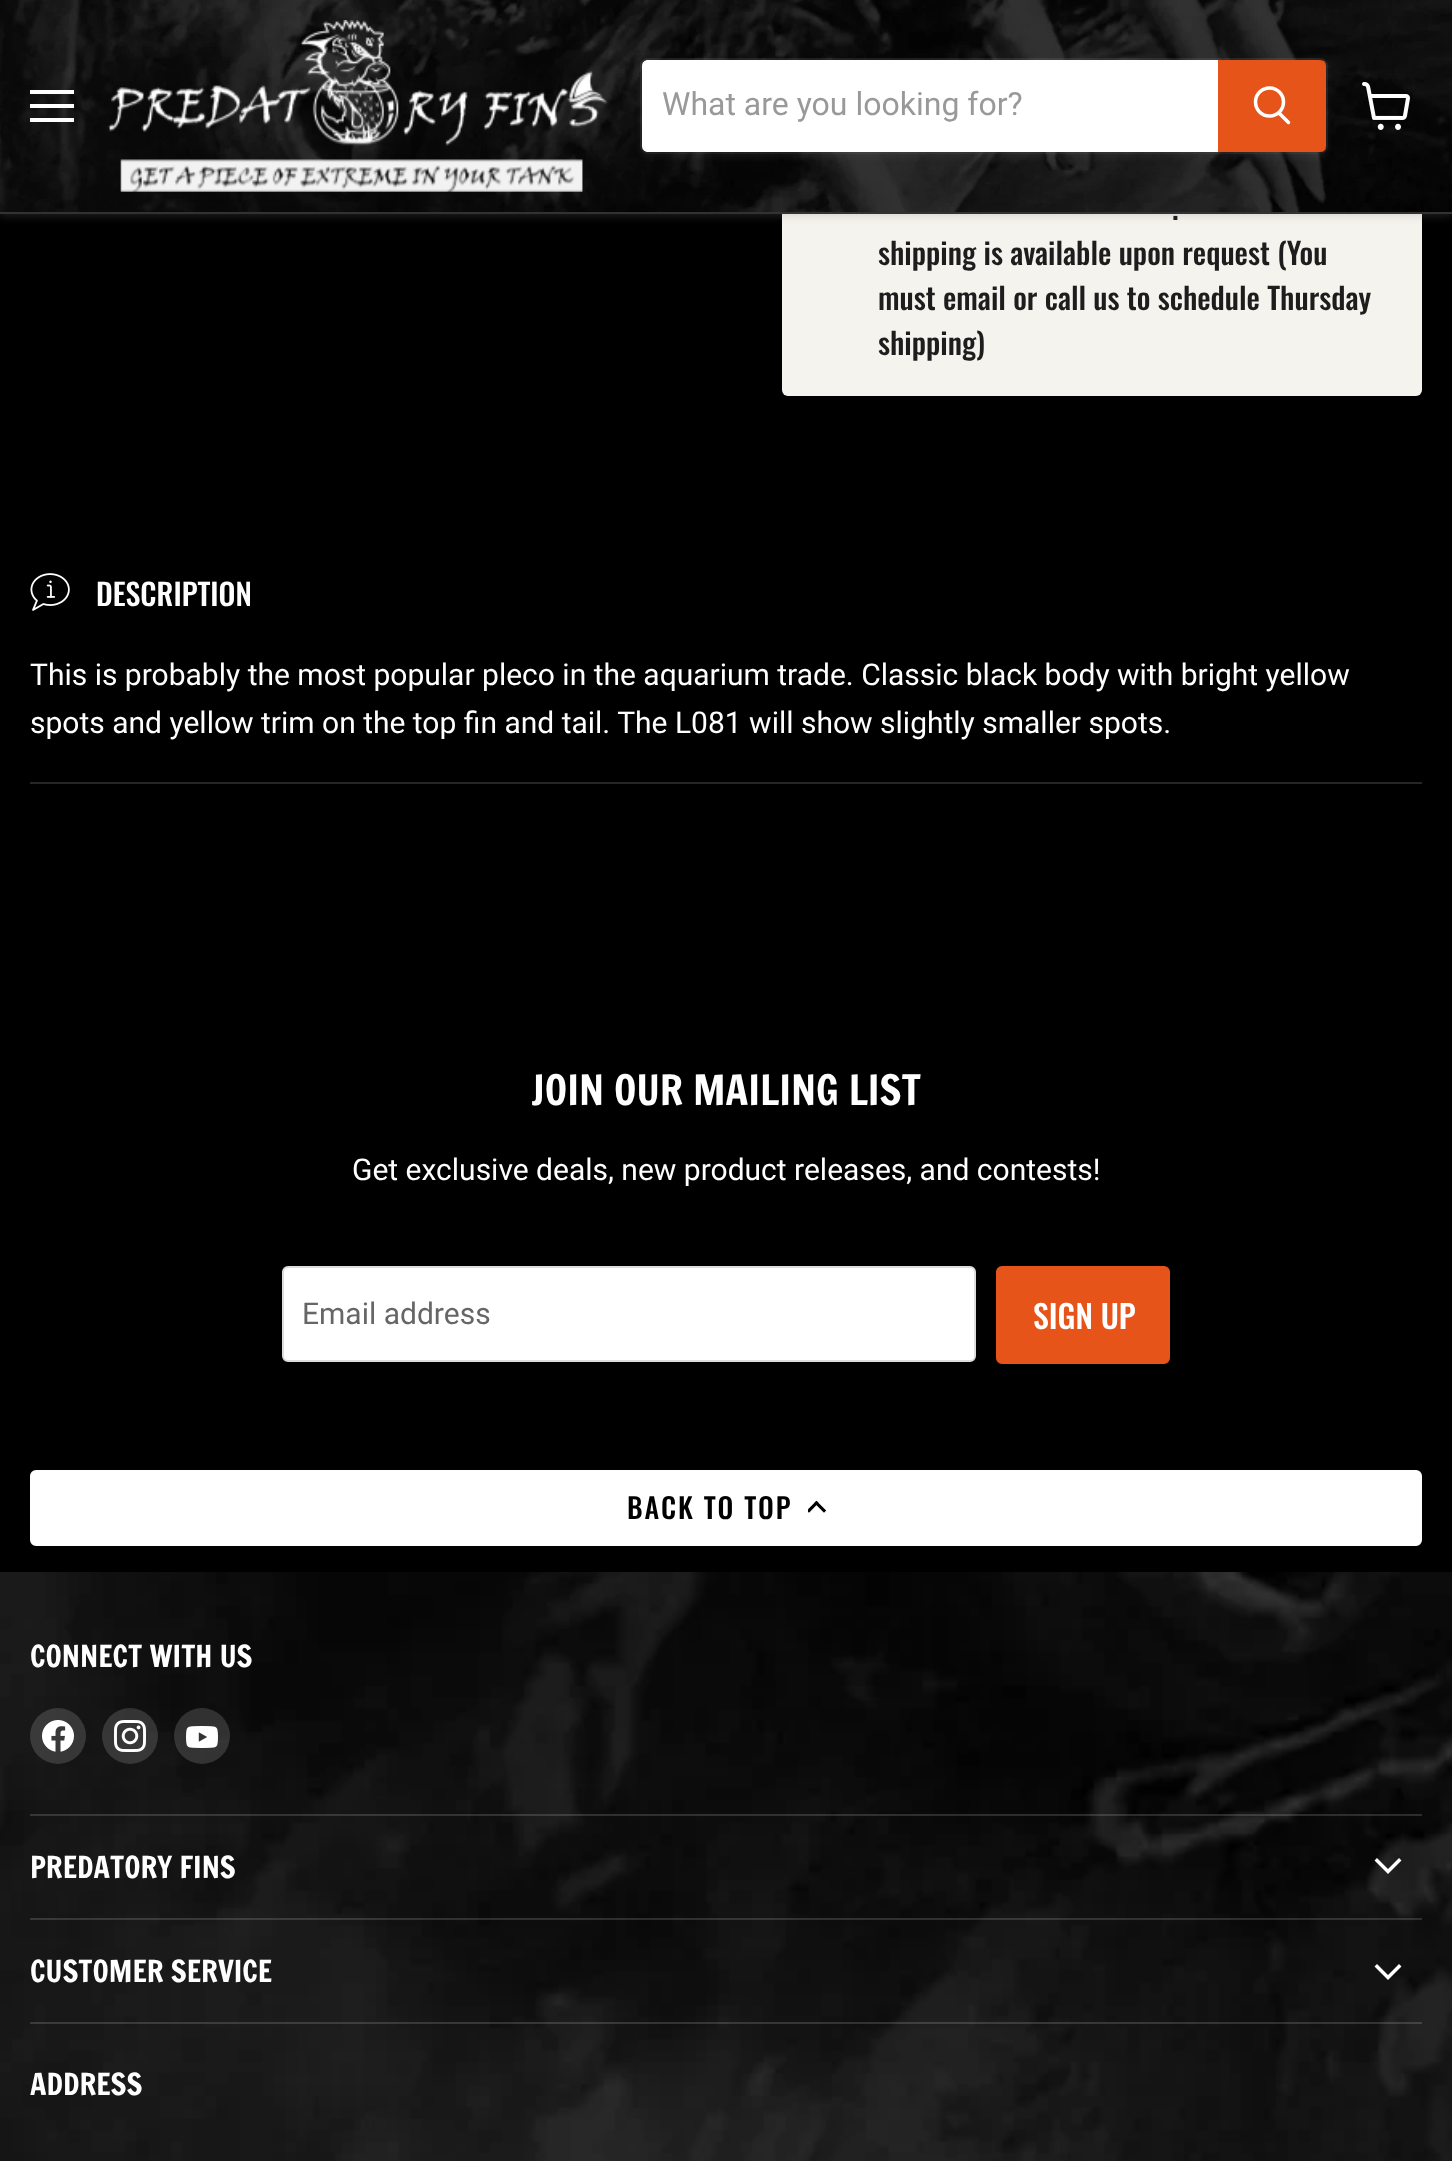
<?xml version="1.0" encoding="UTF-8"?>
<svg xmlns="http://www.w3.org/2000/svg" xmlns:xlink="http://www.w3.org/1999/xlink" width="1452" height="2161">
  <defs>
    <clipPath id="clip1"><path d="M 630 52 h 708 v 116 h -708 z m 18 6 h 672 c 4.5 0 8 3.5 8 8 v 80 c 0 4.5 -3.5 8 -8 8 h -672 c -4.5 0 -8 -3.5 -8 -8 v -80 c 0 -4.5 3.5 -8 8 -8 z" clip-rule="evenodd" /></clipPath>
    <clipPath id="clip2"><rect x="808" y="1500" width="20" height="14" /></clipPath>
  </defs>
  <rect width="100%" height="100%" fill="#000000" />
  <rect x="782" y="54" width="640" height="342" rx="6" fill="#f5f3ed" />
  <rect y="2" width="1452" height="214" fill="#808080" fill-opacity="0.25" filter="blur(4px)" />
  <image x="0" y="0" width="1452" height="212" xlink:href="image1.png" />
  <rect y="212" width="1452" height="2" fill="#323232" />
  <rect x="30" y="90" width="44" height="4" fill="#ffffff" />
  <rect x="30" y="104" width="44" height="4" fill="#ffffff" />
  <rect x="30" y="118" width="44" height="4" fill="#ffffff" />
  <image x="108" y="20" width="500" height="172" xlink:href="image2.png" />
  <g clip-path="url(#clip1)">
    <rect x="640" y="62" width="688" height="96" rx="8" fill="#808080" fill-opacity="0.11" filter="blur(3px)" />
  </g>
  <rect x="641" y="59" width="686" height="94" rx="7" fill="none" stroke="#808080" stroke-opacity="0.2" stroke-width="2" />
  <path d="M 648 60 h 570 v 92 h -570 c -3.5 0 -6 -2.5 -6 -6 v -80 c 0 -3.5 2.5 -6 6 -6 z" fill="#ffffff" />
  <path d="M 1219 61 h 101 c 3 0 5 2 5 5 v 80 c 0 3 -2 5 -5 5 h -101 z" fill="#e65419" stroke="#e65419" stroke-width="2" />
  <path d="M 1288.5 122.5 l -9.5 -9.5" fill="none" stroke="#ffffff" stroke-width="3.5" stroke-linecap="round" />
  <circle cx="1269.5" cy="102" r="14" fill="none" stroke="#ffffff" stroke-width="3.5" />
  <image x="1362" y="82" width="48" height="48" xlink:href="image3.png" />
  <rect x="30" y="782" width="1392" height="2" fill="#262626" />
  <image x="30" y="573" width="40" height="38" xlink:href="image4.png" />
  <rect x="283" y="1267" width="692" height="94" rx="5" fill="#ffffff" stroke="#dddddd" stroke-width="2" />
  <rect x="997" y="1267" width="172" height="96" rx="5" fill="#e65419" stroke="#e65419" stroke-width="2" />
  <rect x="31" y="1471" width="1390" height="74" rx="5" fill="#ffffff" stroke="#ffffff" stroke-width="2" />
  <g clip-path="url(#clip2)">
    <path d="M 816.5 1503 l -7.5 7.5" fill="none" stroke="#000000" stroke-width="3.1" stroke-linecap="square" />
  </g>
  <path d="M 816.5 1503 l 7.5 7.5" fill="none" stroke="#000000" stroke-width="3.1" stroke-linecap="square" />
  <image x="0" y="1572" width="1452" height="589" xlink:href="image5.png" />
  <rect x="30" y="1814" width="1392" height="2" fill="#ffffff" fill-opacity="0.15" />
  <circle cx="58" cy="1736" r="28" fill="#ffffff" fill-opacity="0.15" />
  <image x="42" y="1720" width="32" height="32" xlink:href="image6.png" />
  <circle cx="130" cy="1736" r="28" fill="#ffffff" fill-opacity="0.15" />
  <image x="114" y="1720" width="32" height="32" xlink:href="image7.png" />
  <circle cx="202" cy="1736" r="28" fill="#ffffff" fill-opacity="0.15" />
  <image x="186" y="1726" width="32" height="22" xlink:href="image8.png" />
  <rect x="30" y="1918" width="1392" height="2" fill="#ffffff" fill-opacity="0.15" />
  <path d="M 1388 1871.5 l 11 -11 m -11 11 l -11 -11" fill="none" stroke="#ffffff" stroke-width="3.5" stroke-linecap="square" />
  <rect x="30" y="2022" width="1392" height="2" fill="#ffffff" fill-opacity="0.15" />
  <path d="M 1388 1977.5 l 11 -11 m -11 11 l -11 -11" fill="none" stroke="#ffffff" stroke-width="3.5" stroke-linecap="square" />
  <text x="662" y="115" style="font-family: Roboto; font-size: 32px; fill: #999999">What are you looking for?</text>
  <text x="1172" y="220" style="font-family: Oswald; font-size: 30px; font-weight: 500; fill: #1d1d1d">.</text>
  <text x="878" y="265" style="font-family: Oswald; font-size: 30px; font-weight: 500; fill: #1d1d1d">shipping is available upon request (You</text>
  <text x="878" y="310" style="font-family: Oswald; font-size: 30px; font-weight: 500; fill: #1d1d1d">must email or call us to schedule Thursday</text>
  <text x="878" y="355" style="font-family: Oswald; font-size: 30px; font-weight: 500; fill: #1d1d1d">shipping)</text>
  <text x="96" y="606" style="font-family: Oswald; font-size: 30px; font-weight: 500; fill: #ffffff">DESCRIPTION</text>
  <text x="30" y="685" style="font-family: Roboto; font-size: 30px; fill: #ffffff">This is probably the most popular pleco in the aquarium trade. Classic black body with bright yellow</text>
  <text x="30" y="733" style="font-family: Roboto; font-size: 30px; fill: #ffffff">spots and yellow trim on the top fin and tail. The L081 will show slightly smaller spots.</text>
  <text x="531" y="1105" style="font-family: Francois One; font-size: 41px; fill: #ffffff">JOIN OUR MAILING LIST</text>
  <text x="352" y="1180" style="font-family: Roboto; font-size: 30px; fill: #ffffff">Get exclusive deals, new product releases, and contests!</text>
  <text x="302" y="1324" style="font-family: Roboto; font-size: 30px; fill: #666666">Email address</text>
  <text x="1033" y="1329" style="font-family: Oswald; font-size: 32px; font-weight: 500; fill: #ffffff">SIGN UP</text>
  <text x="627" y="1519" style="font-family: Oswald; font-size: 28px; font-weight: 500; letter-spacing: 2px; fill: #000000">BACK TO TOP</text>
  <text x="30" y="1667" style="font-family: Francois One; font-size: 29.75px; fill: #ffffff">CONNECT WITH US</text>
  <text x="30" y="1878" style="font-family: Francois One; font-size: 29.75px; fill: #ffffff">PREDATORY FINS</text>
  <text x="30" y="1982" style="font-family: Francois One; font-size: 29.75px; fill: #ffffff">CUSTOMER SERVICE</text>
  <text x="30" y="2095" style="font-family: Francois One; font-size: 29.75px; fill: #ffffff">ADDRESS</text>
</svg>
